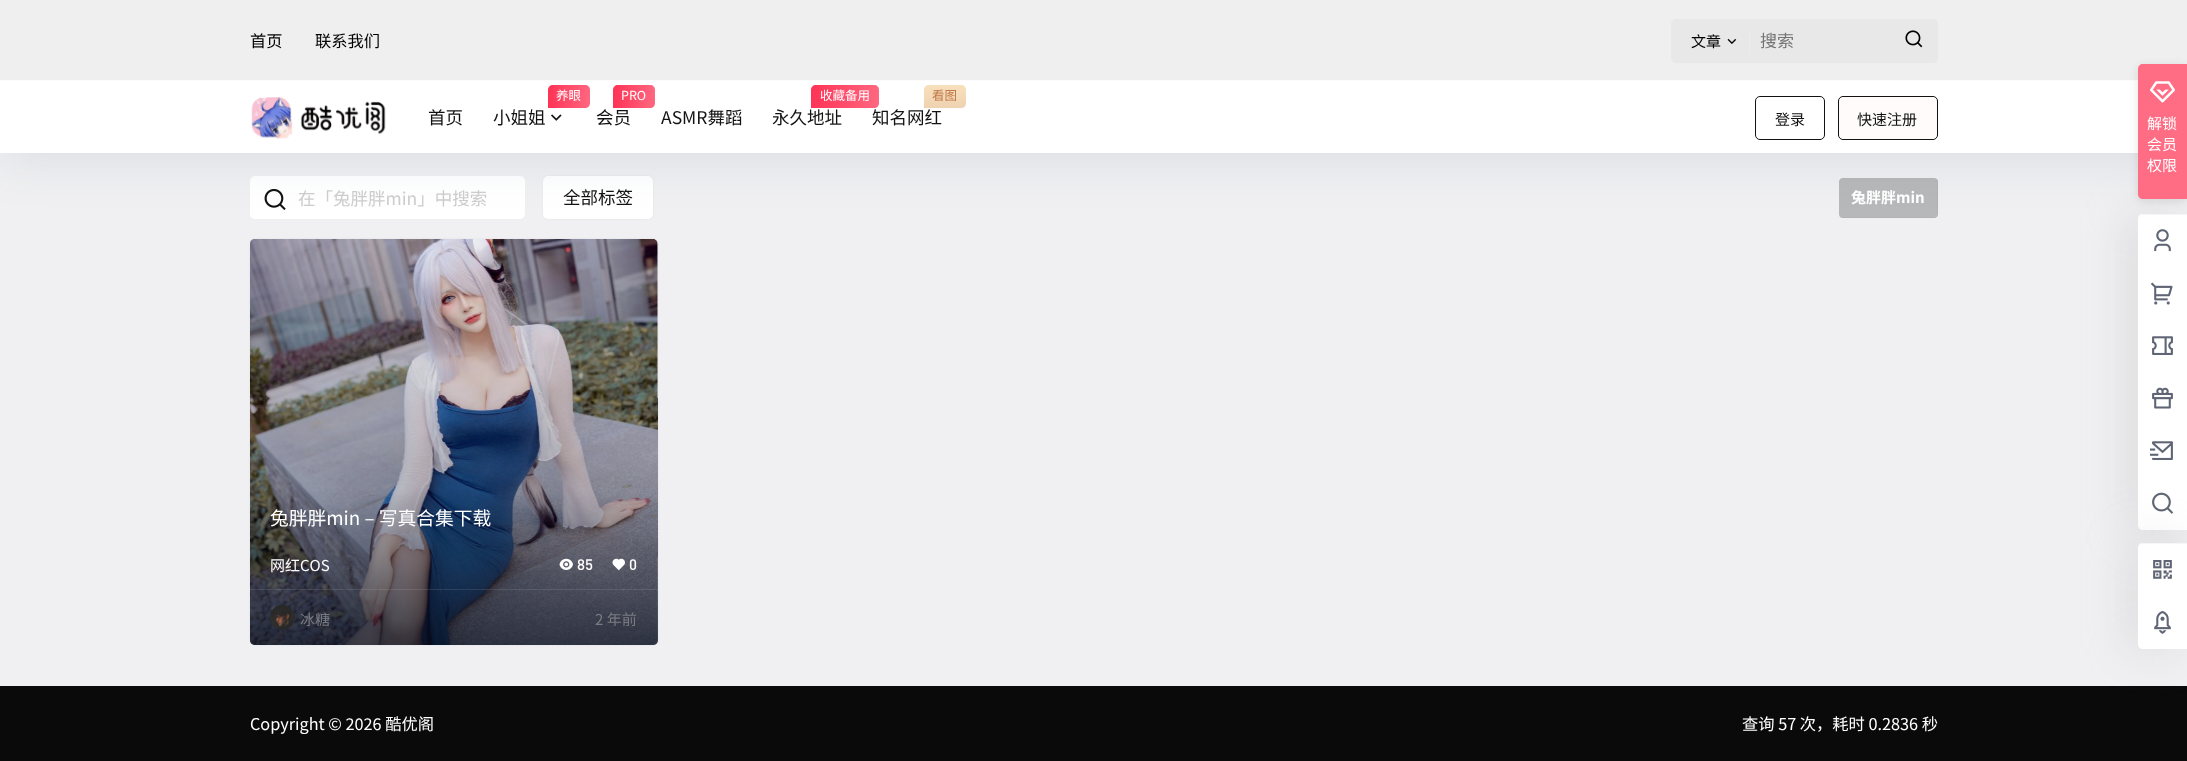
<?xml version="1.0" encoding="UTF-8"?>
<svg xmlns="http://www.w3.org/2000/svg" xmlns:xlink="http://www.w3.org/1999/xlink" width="2187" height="761">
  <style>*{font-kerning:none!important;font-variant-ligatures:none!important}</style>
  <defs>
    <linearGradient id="g1" gradientUnits="userSpaceOnUse" x1="548" y1="96" x2="590" y2="96"><stop offset="0" stop-color="#ff3355" /><stop offset="1" stop-color="#ff6780" /></linearGradient>
    <linearGradient id="g2" gradientUnits="userSpaceOnUse" x1="613" y1="96" x2="655" y2="96"><stop offset="0" stop-color="#ff3355" /><stop offset="1" stop-color="#ff6780" /></linearGradient>
    <linearGradient id="g3" gradientUnits="userSpaceOnUse" x1="811" y1="96" x2="879" y2="96"><stop offset="0" stop-color="#ff3355" /><stop offset="1" stop-color="#ff6780" /></linearGradient>
    <linearGradient id="g4" gradientUnits="userSpaceOnUse" x1="945" y1="107" x2="945" y2="84"><stop offset="0" stop-color="#efd3b0" /><stop offset="1" stop-color="#f9e1be" /></linearGradient>
    <linearGradient id="g5" gradientUnits="userSpaceOnUse" x1="454" y1="645" x2="454" y2="239"><stop offset="0" stop-color="#090f1d" stop-opacity="0.33" /><stop offset="1" stop-color="#090f1d" stop-opacity="0" /></linearGradient>
    <linearGradient id="g6" gradientUnits="userSpaceOnUse" x1="454" y1="645" x2="454" y2="490"><stop offset="0" stop-color="#090f1d" stop-opacity="0.65" /><stop offset="1" stop-color="#090f1d" stop-opacity="0" /></linearGradient>
    <clipPath id="clip1"><rect x="300" y="609" width="30" height="17" /></clipPath>
    <clipPath id="clip2"><rect x="595" y="609" width="43" height="17" /></clipPath>
  </defs>
  <rect width="100%" height="100%" fill="#f0f0f2" />
  <rect x="250" y="176" width="275" height="43" rx="5" fill="#ffffff" />
  <image x="264" y="188" width="22" height="22" xlink:href="image14.png" />
  <rect x="543" y="176" width="110" height="43" rx="5" fill="#627c99" fill-opacity="0.1" filter="blur(1px)" />
  <rect x="543" y="176" width="110" height="43" rx="5" fill="#ffffff" />
  <rect x="1839" y="178" width="98" height="39" fill="#f7f8fa" />
  <rect x="1839" y="178" width="99" height="40" rx="4" fill="#000000" fill-opacity="0.26" />
  <rect y="6" width="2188" height="153" fill="#113a5d" fill-opacity="0.1" filter="blur(25px)" />
  <rect width="2187" height="80" fill="#efefef" />
  <rect x="1671" y="19" width="267" height="44" rx="5" fill="#e8e8e8" />
  <rect x="1749" y="29" width="1" height="24" fill="#ececec" />
  <image x="1727" y="38" width="10" height="6" xlink:href="image1.png" />
  <image x="1905" y="30" width="18" height="18" xlink:href="image2.png" />
  <rect y="81" width="2138" height="72" fill="#ffffff" />
  <rect y="80" width="2138" height="1" fill="#fcfcfc" />
  <image x="251" y="97" width="135" height="42" xlink:href="image3.png" />
  <path d="M 553 85 h 32 c 3 0 5 2 5 5 v 13 c 0 3 -2 5 -5 5 h -37 v -18 c 0 -3 2 -5 5 -5 z" fill="url(#g1)" />
  <image x="551" y="114" width="11" height="7" xlink:href="image4.png" />
  <path d="M 618 85 h 32 c 3 0 5 2 5 5 v 13 c 0 3 -2 5 -5 5 h -37 v -18 c 0 -3 2 -5 5 -5 z" fill="url(#g2)" />
  <path d="M 816 85 h 58 c 3 0 5 2 5 5 v 13 c 0 3 -2 5 -5 5 h -63 v -18 c 0 -3 2 -5 5 -5 z" fill="url(#g3)" />
  <path d="M 929 85 h 32 c 3 0 5 2 5 5 v 13 c 0 3 -2 5 -5 5 h -37 v -18 c 0 -3 2 -5 5 -5 z" fill="url(#g4)" />
  <rect x="1755.5" y="96.5" width="69" height="43" rx="4.5" fill="none" stroke="#121212" />
  <rect x="1838.5" y="96.5" width="99" height="43" rx="4.5" fill="#fffbfb" stroke="#121212" />
  <rect x="2128" y="214" width="50" height="316" rx="5" fill="#b5b5b5" fill-opacity="0.32" filter="blur(22px)" />
  <path d="M 2143 214 h 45 v 316 h -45 c -3 0 -5 -2 -5 -5 v -306 c 0 -3 2 -5 5 -5 z" fill="#ffffff" />
  <rect x="2140" y="214" width="47" height="1" fill="#f5f6f7" />
  <rect x="2138" y="66" width="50" height="135" rx="5" fill="#000000" fill-opacity="0.1" filter="blur(5px)" />
  <path d="M 2143 64 h 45 v 135 h -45 c -3 0 -5 -2 -5 -5 v -125 c 0 -3 2 -5 5 -5 z" fill="#ff6d85" />
  <image x="2150" y="81" width="25" height="22" xlink:href="image5.png" />
  <image x="2154" y="229" width="17" height="23" xlink:href="image6.png" />
  <image x="2150" y="282" width="23" height="23" xlink:href="image7.png" />
  <image x="2152" y="336" width="21" height="19" xlink:href="image8.png" />
  <image x="2152" y="387" width="21" height="22" xlink:href="image9.png" />
  <image x="2150" y="441" width="23" height="19" xlink:href="image10.png" />
  <image x="2152" y="492" width="22" height="22" xlink:href="image11.png" />
  <rect y="686" width="2187" height="75" fill="#0a0a0a" />
  <rect x="2128" y="543" width="50" height="106" rx="5" fill="#b5b5b5" fill-opacity="0.32" filter="blur(22px)" />
  <path d="M 2143 543 h 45 v 106 h -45 c -3 0 -5 -2 -5 -5 v -96 c 0 -3 2 -5 5 -5 z" fill="#ffffff" />
  <rect x="2140" y="543" width="47" height="1" fill="#f5f6f7" />
  <image x="2153" y="560" width="19" height="19" xlink:href="image12.png" />
  <image x="2154" y="610" width="17" height="24" xlink:href="image13.png" />
  <rect x="250" y="239" width="408" height="406" rx="5" fill="#627c99" fill-opacity="0.1" filter="blur(1px)" />
  <rect x="250" y="239" width="408" height="406" rx="5" fill="#f5f6f7" />
  <image x="250" y="239" width="408" height="406" xlink:href="image15.png" />
  <rect x="250" y="239" width="408" height="406" rx="5" fill="url(#g5)" />
  <path d="M 250 490 h 408 v 150 c 0 3 -2 5 -5 5 h -398 c -3 0 -5 -2 -5 -5 z" fill="url(#g6)" />
  <image x="559" y="558" width="14" height="12" xlink:href="image16.png" />
  <image x="612" y="558" width="13" height="13" xlink:href="image17.png" />
  <rect x="250" y="589" width="408" height="1" fill="#ffffff" fill-opacity="0.1" />
  <image x="270" y="605" width="25" height="25" xlink:href="image18.png" />
  <text x="250" y="47" style="font-family: Noto Sans CJK SC; font-size: 16.25px; fill: #000000">首页</text>
  <text x="315" y="47" style="font-family: Noto Sans CJK SC; font-size: 16.25px; fill: #000000">联系我们</text>
  <text x="1691" y="47" style="font-family: Noto Sans CJK SC; font-size: 15px; fill: #000000">文章</text>
  <text x="1760" y="47" style="font-family: Noto Sans CJK SC; font-size: 17px; fill: #747474">搜索</text>
  <text x="428" y="124" style="font-family: Noto Sans CJK SC; font-size: 17.5px; fill: #121212">首页</text>
  <text x="556" y="100" style="font-family: Noto Sans CJK SC; font-size: 12.5px; fill: #ffffff">养眼</text>
  <text x="493" y="124" style="font-family: Noto Sans CJK SC; font-size: 17.5px; fill: #121212">小姐姐</text>
  <text x="621" y="100" style="font-family: Noto Sans CJK SC; font-size: 12.5px; fill: #ffffff">PRO</text>
  <text x="596" y="124" style="font-family: Noto Sans CJK SC; font-size: 17.5px; fill: #121212">会员</text>
  <text x="661" y="124" style="font-family: Noto Sans CJK SC; font-size: 17.5px; fill: #121212">ASMR舞蹈</text>
  <text x="820" y="100" style="font-family: Noto Sans CJK SC; font-size: 12.5px; fill: #ffffff">收藏备用</text>
  <text x="772" y="124" style="font-family: Noto Sans CJK SC; font-size: 17.5px; fill: #121212">永久地址</text>
  <text x="932" y="100" style="font-family: Noto Sans CJK SC; font-size: 12.5px; fill: #bf7648">看图</text>
  <text x="872" y="124" style="font-family: Noto Sans CJK SC; font-size: 17.5px; fill: #121212">知名网红</text>
  <text x="1775" y="125" style="font-family: Noto Sans CJK SC; font-size: 15px; fill: #121212">登录</text>
  <text x="1857" y="125" style="font-family: Noto Sans CJK SC; font-size: 15px; fill: #121212">快速注册</text>
  <text x="2147" y="129" style="font-family: Noto Sans CJK SC; font-size: 15px; fill: #ffffff">解锁</text>
  <text x="2147" y="150" style="font-family: Noto Sans CJK SC; font-size: 15px; fill: #ffffff">会员</text>
  <text x="2147" y="171" style="font-family: Noto Sans CJK SC; font-size: 15px; fill: #ffffff">权限</text>
  <text x="298" y="205" style="font-family: Noto Sans CJK SC; font-size: 17.5px; fill: #cccccc">在「兔胖胖min」中搜索</text>
  <text x="563" y="204" style="font-family: Noto Sans CJK SC; font-size: 17.5px; fill: #121212">全部标签</text>
  <text x="1851" y="203" style="font-family: Noto Sans CJK SC; font-size: 15px; font-weight: bold; fill: #ffffff">兔胖胖min</text>
  <text x="270" y="525" style="font-family: Noto Sans CJK SC; font-size: 18.75px; fill: #ffffff">兔胖胖min – 写真合集下载</text>
  <text x="270" y="571" style="font-family: Noto Sans CJK SC; font-size: 15px; fill: #ffffff">网红COS</text>
  <text x="577" y="570" style="font-family: DIN; font-size: 15px; font-weight: 500; fill: #ffffff">85</text>
  <text x="629" y="570" style="font-family: DIN; font-size: 15px; font-weight: 500; fill: #ffffff">0</text>
  <g clip-path="url(#clip1)">
    <text x="300" y="625" style="font-family: Noto Sans CJK SC; font-size: 15px; fill: #797c80">冰糖</text>
  </g>
  <g clip-path="url(#clip2)">
    <text x="595" y="625" style="font-family: Noto Sans CJK SC; font-size: 15px; fill: #797c80">2 年前</text>
  </g>
  <text x="250" y="730" style="font-family: Noto Sans CJK SC; font-size: 16.25px; fill: #ffffff">Copyright © 2026 酷优阁</text>
  <text x="1742" y="730" style="font-family: Noto Sans CJK SC; font-size: 16.25px; fill: #ffffff">查询 57 次，耗时 0.2836 秒</text>
</svg>
